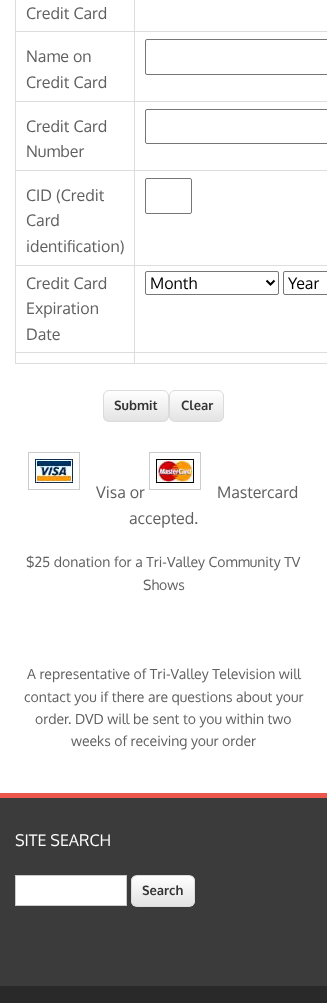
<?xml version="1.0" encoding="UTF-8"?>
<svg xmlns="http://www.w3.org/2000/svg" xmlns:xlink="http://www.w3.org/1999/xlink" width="327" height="1003">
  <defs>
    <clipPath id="clip1"><rect x="103" y="390" width="66" height="32" rx="6" /></clipPath>
    <linearGradient id="g1" gradientUnits="userSpaceOnUse" x1="136" y1="391" x2="136" y2="421"><stop offset="0" stop-color="#ffffff" /><stop offset="1" stop-color="#e3e3e3" /></linearGradient>
    <clipPath id="clip2"><rect x="169" y="390" width="55" height="32" rx="6" /></clipPath>
    <linearGradient id="g2" gradientUnits="userSpaceOnUse" x1="197" y1="391" x2="197" y2="421"><stop offset="0" stop-color="#ffffff" /><stop offset="1" stop-color="#e3e3e3" /></linearGradient>
    <clipPath id="clip3"><rect x="131" y="875" width="64" height="32" rx="6" /></clipPath>
    <linearGradient id="g3" gradientUnits="userSpaceOnUse" x1="163" y1="876" x2="163" y2="906"><stop offset="0" stop-color="#ffffff" /><stop offset="1" stop-color="#e3e3e3" /></linearGradient>
  </defs>
  <rect width="100%" height="100%" fill="#ffffff" />
  <rect x="15" y="363" width="312" height="1" fill="#dddddd" />
  <rect x="15" width="1" height="364" fill="#dddddd" />
  <rect x="15" y="31" width="312" height="1" fill="#dddddd" />
  <rect x="145.5" y="39.5" width="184" height="35" rx="1.5" fill="none" stroke="#767676" />
  <rect x="15" y="101" width="312" height="1" fill="#dddddd" />
  <rect x="15" y="170" width="312" height="1" fill="#dddddd" />
  <rect x="15" y="265" width="312" height="1" fill="#dddddd" />
  <rect x="15" y="352" width="312" height="1" fill="#dddddd" />
  <rect x="134" y="352" width="1" height="12" fill="#dddddd" />
  <rect x="134" y="265" width="1" height="88" fill="#dddddd" />
  <rect x="134" y="170" width="1" height="96" fill="#dddddd" />
  <rect x="134" y="101" width="1" height="70" fill="#dddddd" />
  <rect x="134" width="1" height="102" fill="#dddddd" />
  <rect x="145.5" y="109.5" width="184" height="34" rx="1.5" fill="none" stroke="#767676" />
  <rect x="145.5" y="178.5" width="46" height="35" rx="1.5" fill="none" stroke="#767676" />
  <rect x="145.5" y="271.5" width="133" height="23" rx="1.5" fill="none" stroke="#767676" />
  <path d="M 266.5 280.5 l 4 4 l 4 -4" fill="none" stroke="#000000" stroke-width="2" />
  <rect x="283.5" y="271.5" width="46" height="23" rx="1.5" fill="none" stroke="#767676" />
  <g clip-path="url(#clip1)">
    <rect x="103" y="391" width="66" height="30" fill="url(#g1)" />
  </g>
  <rect x="103.5" y="390.5" width="65" height="31" rx="5.5" fill="none" stroke="#dbdbdb" />
  <g clip-path="url(#clip2)">
    <rect x="169" y="391" width="55" height="30" fill="url(#g2)" />
  </g>
  <rect x="169.5" y="390.5" width="54" height="31" rx="5.5" fill="none" stroke="#dbdbdb" />
  <rect x="28.5" y="452.5" width="51" height="37" fill="none" stroke="#cccccc" />
  <rect x="149.5" y="452.5" width="51" height="37" fill="none" stroke="#cccccc" />
  <image x="35" y="459" width="38" height="24" xlink:href="image1.png" />
  <image x="156" y="459" width="38" height="24" xlink:href="image2.png" />
  <rect y="798" width="327" height="188" fill="#3b3b3b" />
  <rect y="793" width="327" height="5" fill="#ed564b" />
  <rect x="15.5" y="875.5" width="111" height="30" fill="#ffffff" stroke="#cccccc" />
  <g clip-path="url(#clip3)">
    <rect x="131" y="876" width="64" height="30" fill="url(#g3)" />
  </g>
  <path d="M 137 877 h 52 c 3 0 5 2 5 5 c 0 -8 -8 -6 -14 -6 h -34 c -6 0 -14 -2 -14 6 c 0 -3 2 -5 5 -5 z" fill="#ffffff" />
  <rect x="131.5" y="875.5" width="63" height="31" rx="5.5" fill="none" stroke="#dbdbdb" />
  <rect y="986" width="327" height="17" fill="#292929" />
  <text x="26" y="19" style="font-family: Oxygen; font-size: 16px; fill: #606060">Credit Card</text>
  <text x="26" y="62" style="font-family: Oxygen; font-size: 16px; fill: #606060">Name on</text>
  <text x="26" y="88" style="font-family: Oxygen; font-size: 16px; fill: #606060">Credit Card</text>
  <text x="26" y="132" style="font-family: Oxygen; font-size: 16px; fill: #606060">Credit Card</text>
  <text x="26" y="157" style="font-family: Oxygen; font-size: 16px; fill: #606060">Number</text>
  <text x="26" y="201" style="font-family: Oxygen; font-size: 16px; fill: #606060">CID (Credit</text>
  <text x="26" y="226" style="font-family: Oxygen; font-size: 16px; fill: #606060">Card</text>
  <text x="26" y="252" style="font-family: Oxygen; font-size: 16px; fill: #606060">identification)</text>
  <text x="26" y="289" style="font-family: Oxygen; font-size: 16px; fill: #606060">Credit Card</text>
  <text x="26" y="314" style="font-family: Oxygen; font-size: 16px; fill: #606060">Expiration</text>
  <text x="26" y="340" style="font-family: Oxygen; font-size: 16px; fill: #606060">Date</text>
  <text x="150" y="289" style="font-family: Oxygen; font-size: 16px; fill: #000000">Month</text>
  <text x="288" y="289" style="font-family: Oxygen; font-size: 16px; fill: #000000">Year</text>
  <text x="114" y="410" style="font-family: Oxygen; font-size: 13px; font-weight: bold; fill: #333333">Submit</text>
  <text x="181" y="410" style="font-family: Oxygen; font-size: 13px; font-weight: bold; fill: #333333">Clear</text>
  <text x="96" y="498" style="font-family: Oxygen; font-size: 16px; fill: #606060">Visa or</text>
  <text x="217" y="498" style="font-family: Oxygen; font-size: 16px; fill: #606060">Mastercard</text>
  <text x="129" y="524" style="font-family: Oxygen; font-size: 16px; fill: #606060">accepted.</text>
  <text x="26" y="567" style="font-family: Oxygen; font-size: 14px; fill: #606060">$25 donation for a Tri-Valley Community TV</text>
  <text x="143" y="590" style="font-family: Oxygen; font-size: 14px; fill: #606060">Shows</text>
  <text x="27" y="679" style="font-family: Oxygen; font-size: 14px; fill: #606060">A representative of Tri-Valley Television will</text>
  <text x="24" y="702" style="font-family: Oxygen; font-size: 14px; fill: #606060">contact you if there are questions about your</text>
  <text x="35" y="724" style="font-family: Oxygen; font-size: 14px; fill: #606060">order. DVD will be sent to you within two</text>
  <text x="71" y="746" style="font-family: Oxygen; font-size: 14px; fill: #606060">weeks of receiving your order</text>
  <text x="15" y="846" style="font-family: Oxygen; font-size: 16px; fill: #ffffff">SITE SEARCH</text>
  <text x="142" y="895" style="font-family: Oxygen; font-size: 13px; font-weight: bold; fill: #333333">Search</text>
</svg>
